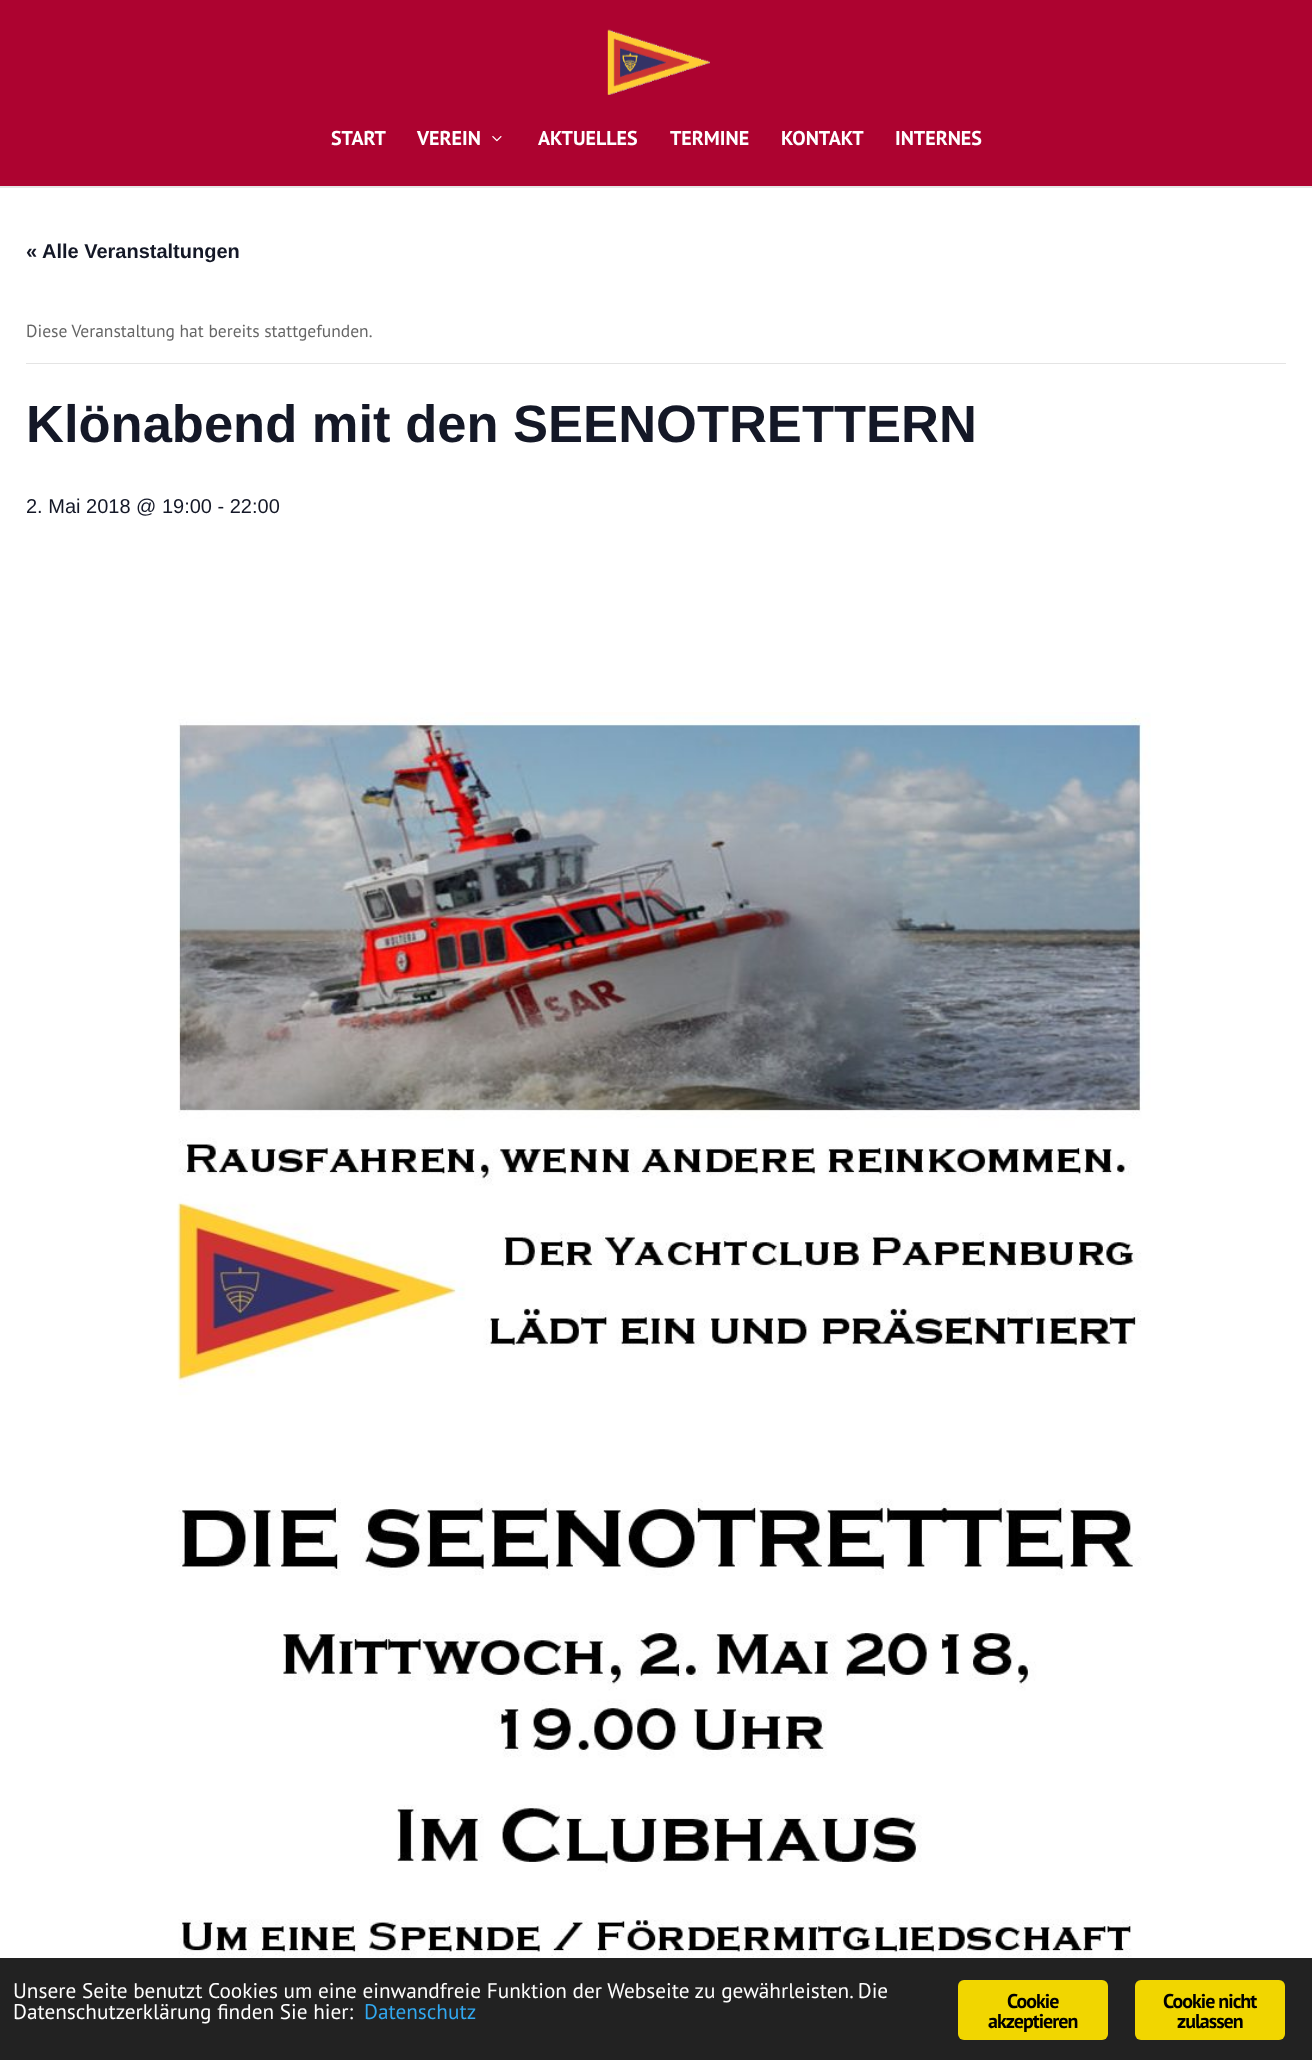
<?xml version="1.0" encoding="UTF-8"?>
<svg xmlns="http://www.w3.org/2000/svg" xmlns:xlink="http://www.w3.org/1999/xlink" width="1312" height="2060">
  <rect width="100%" height="100%" fill="#ffffff" />
  <path d="M 0 186 v 2 h 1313 v -187 h -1 v 185 z" fill="#e6e6e6" />
  <rect width="1312" height="186" fill="#ad0330" />
  <image x="607" y="29" width="103" height="66" xlink:href="image1.png" />
  <image x="492" y="136" width="10" height="6" xlink:href="image2.png" />
  <rect x="26" y="363" width="1260" height="1" fill="#e4e4e4" />
  <image x="177" y="712" width="974" height="1246" xlink:href="image3.png" />
  <rect y="1958" width="1312" height="102" fill="#222222" />
  <rect x="958" y="1980" width="150" height="60" rx="6" fill="#f1d600" />
  <rect x="1135" y="1980" width="150" height="60" rx="6" fill="#f1d600" />
  <text x="331" y="145" style="font-family: PT Sans; font-size: 20px; font-weight: bold; fill: #ffffff">START</text>
  <text x="417" y="145" style="font-family: PT Sans; font-size: 20px; font-weight: bold; fill: #ffffff">VEREIN</text>
  <text x="538" y="145" style="font-family: PT Sans; font-size: 20px; font-weight: bold; fill: #ffffff">AKTUELLES</text>
  <text x="670" y="145" style="font-family: PT Sans; font-size: 20px; font-weight: bold; fill: #ffffff">TERMINE</text>
  <text x="781" y="145" style="font-family: PT Sans; font-size: 20px; font-weight: bold; fill: #ffffff">KONTAKT</text>
  <text x="895" y="145" style="font-family: PT Sans; font-size: 20px; font-weight: bold; fill: #ffffff">INTERNES</text>
  <text x="26" y="258" style="font-family: Liberation Sans; font-size: 20px; font-weight: bold; fill: #141827">« Alle Veranstaltungen</text>
  <text x="26" y="337" style="font-family: PT Sans; font-size: 17.5px; fill: #666666">Diese Veranstaltung hat bereits stattgefunden.</text>
  <text x="26" y="442" style="font-family: Liberation Sans; font-size: 52.5px; font-weight: bold; fill: #141827">Klönabend mit den SEENOTRETTERN</text>
  <text x="26" y="513" style="font-family: Liberation Sans; font-size: 20px; fill: #141827">2. Mai 2018 @ 19:00 - 22:00</text>
  <text x="13" y="1998" style="font-family: PT Sans; font-size: 21.25px; fill: #ffffff">Unsere Seite benutzt Cookies um eine einwandfreie Funktion der Webseite zu gewährleisten. Die</text>
  <text x="13" y="2019" style="font-family: PT Sans; font-size: 21.25px; fill: #ffffff">Datenschutzerklärung finden Sie hier:</text>
  <text x="364" y="2019" style="font-family: PT Sans; font-size: 21.25px; fill: #31a8f0">Datenschutz</text>
  <text x="1007" y="2008" style="font-family: PT Sans; font-size: 20px; font-weight: bold; letter-spacing: -1px; fill: #000000">Cookie</text>
  <text x="988" y="2028" style="font-family: PT Sans; font-size: 20px; font-weight: bold; letter-spacing: -1px; fill: #000000">akzeptieren</text>
  <text x="1163" y="2008" style="font-family: PT Sans; font-size: 20px; font-weight: bold; letter-spacing: -1px; fill: #000000">Cookie nicht</text>
  <text x="1177" y="2028" style="font-family: PT Sans; font-size: 20px; font-weight: bold; letter-spacing: -1px; fill: #000000">zulassen</text>
</svg>
